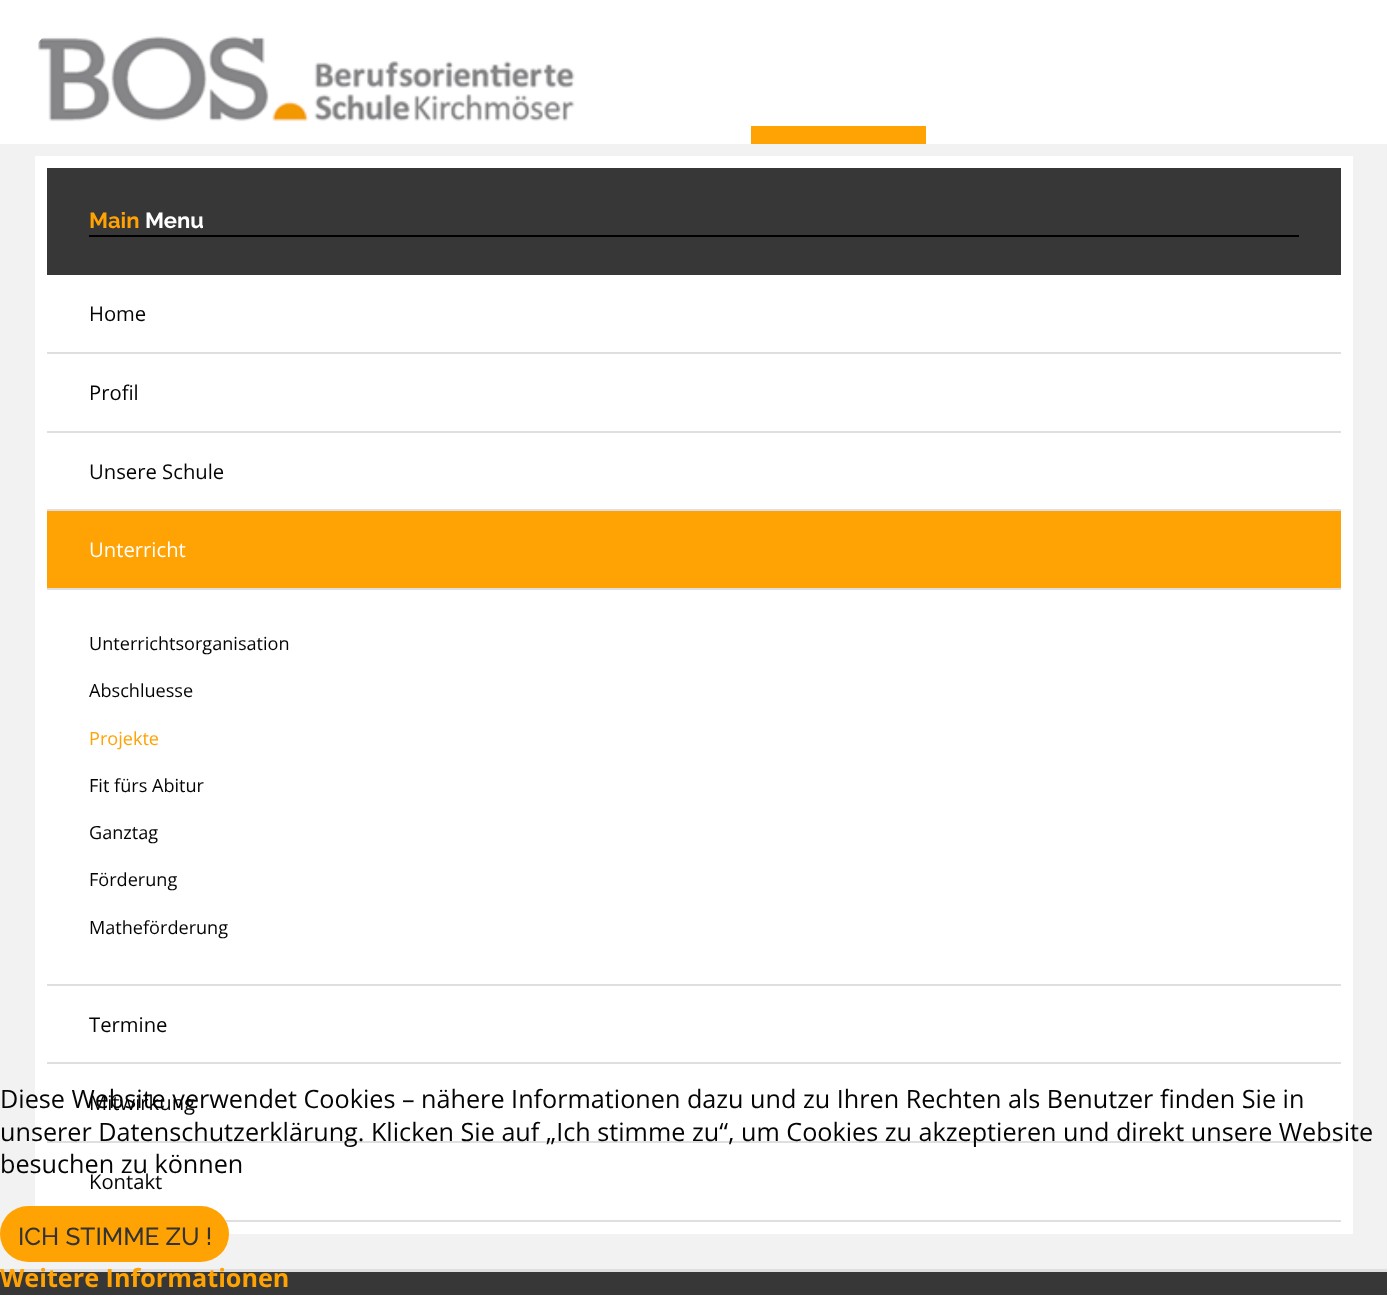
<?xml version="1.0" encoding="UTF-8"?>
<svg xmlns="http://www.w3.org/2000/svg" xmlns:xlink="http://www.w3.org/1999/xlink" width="1387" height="1295">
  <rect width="100%" height="100%" fill="#e0dfdf" />
  <rect width="1387" height="144" fill="#ffffff" />
  <image x="38" y="36" width="537" height="86" xlink:href="image1.png" />
  <rect x="751" y="126" width="175" height="18" fill="#ffa204" />
  <rect y="144" width="1387" height="1125" fill="#f2f2f2" />
  <rect x="35" y="156" width="1318" height="1078" fill="#ffffff" />
  <rect x="47" y="168" width="1294" height="107" fill="#373737" />
  <rect x="89" y="235" width="1210" height="2" fill="#000000" />
  <rect x="47" y="352" width="1294" height="2" fill="#e0dfdf" />
  <rect x="47" y="431" width="1294" height="2" fill="#e0dfdf" />
  <rect x="47" y="509" width="1294" height="2" fill="#e0dfdf" />
  <rect x="47" y="511" width="1294" height="77" fill="#ffa204" />
  <rect x="47" y="588" width="1294" height="2" fill="#e0dfdf" />
  <rect x="47" y="984" width="1294" height="2" fill="#e0dfdf" />
  <rect x="47" y="1062" width="1294" height="2" fill="#e0dfdf" />
  <rect x="47" y="1141" width="1294" height="2" fill="#e0dfdf" />
  <rect x="225" y="1220" width="1116" height="2" fill="#e0dfdf" />
  <rect y="1272" width="1387" height="23" fill="#373737" />
  <rect y="1206" width="229" height="56" rx="28" fill="#ffa204" />
  <text x="89" y="228" style="font-family: Raleway; font-size: 22px; font-weight: bold; fill: #ffa204">Main</text>
  <text x="145" y="228" style="font-family: Raleway; font-size: 22px; font-weight: bold; fill: #ffffff">Menu</text>
  <text x="89" y="321" style="font-family: Open Sans; font-size: 20.25px; fill: #040404">Home</text>
  <text x="89" y="400" style="font-family: Open Sans; font-size: 20.25px; fill: #040404">Profil</text>
  <text x="89" y="479" style="font-family: Open Sans; font-size: 20.25px; fill: #040404">Unsere Schule</text>
  <text x="89" y="557" style="font-family: Open Sans; font-size: 20.25px; fill: #ffffff">Unterricht</text>
  <text x="89" y="650" style="font-family: Open Sans; font-size: 18.1px; fill: #040404">Unterrichtsorganisation</text>
  <text x="89" y="697" style="font-family: Open Sans; font-size: 18.1px; fill: #040404">Abschluesse</text>
  <text x="89" y="745" style="font-family: Open Sans; font-size: 18.1px; fill: #ffa204">Projekte</text>
  <text x="89" y="792" style="font-family: Open Sans; font-size: 18.1px; fill: #040404">Fit fürs Abitur</text>
  <text x="89" y="839" style="font-family: Open Sans; font-size: 18.1px; fill: #040404">Ganztag</text>
  <text x="89" y="886" style="font-family: Open Sans; font-size: 18.1px; fill: #040404">Förderung</text>
  <text x="89" y="934" style="font-family: Open Sans; font-size: 18.1px; fill: #040404">Matheförderung</text>
  <text x="89" y="1032" style="font-family: Open Sans; font-size: 20.25px; fill: #040404">Termine</text>
  <text x="89" y="1110" style="font-family: Open Sans; font-size: 20.25px; fill: #040404">Mitwirkung</text>
  <text x="89" y="1189" style="font-family: Open Sans; font-size: 20.25px; fill: #040404">Kontakt</text>
  <text x="0" y="1108" style="font-family: Open Sans; font-size: 25.2px; fill: #040404">Diese Website verwendet Cookies – nähere Informationen dazu und zu Ihren Rechten als Benutzer finden Sie in</text>
  <text x="0" y="1141" style="font-family: Open Sans; font-size: 25.2px; fill: #040404">unserer Datenschutzerklärung. Klicken Sie auf „Ich stimme zu“, um Cookies zu akzeptieren und direkt unsere Website</text>
  <text x="0" y="1173" style="font-family: Open Sans; font-size: 25.2px; fill: #040404">besuchen zu können</text>
  <text x="18" y="1245" style="font-family: Raleway; font-size: 24.5px; font-weight: 500; fill: #333333">ICH STIMME ZU !</text>
  <text x="0" y="1287" style="font-family: Open Sans; font-size: 25.2px; font-weight: bold; fill: #ffa204">Weitere Informationen</text>
</svg>
